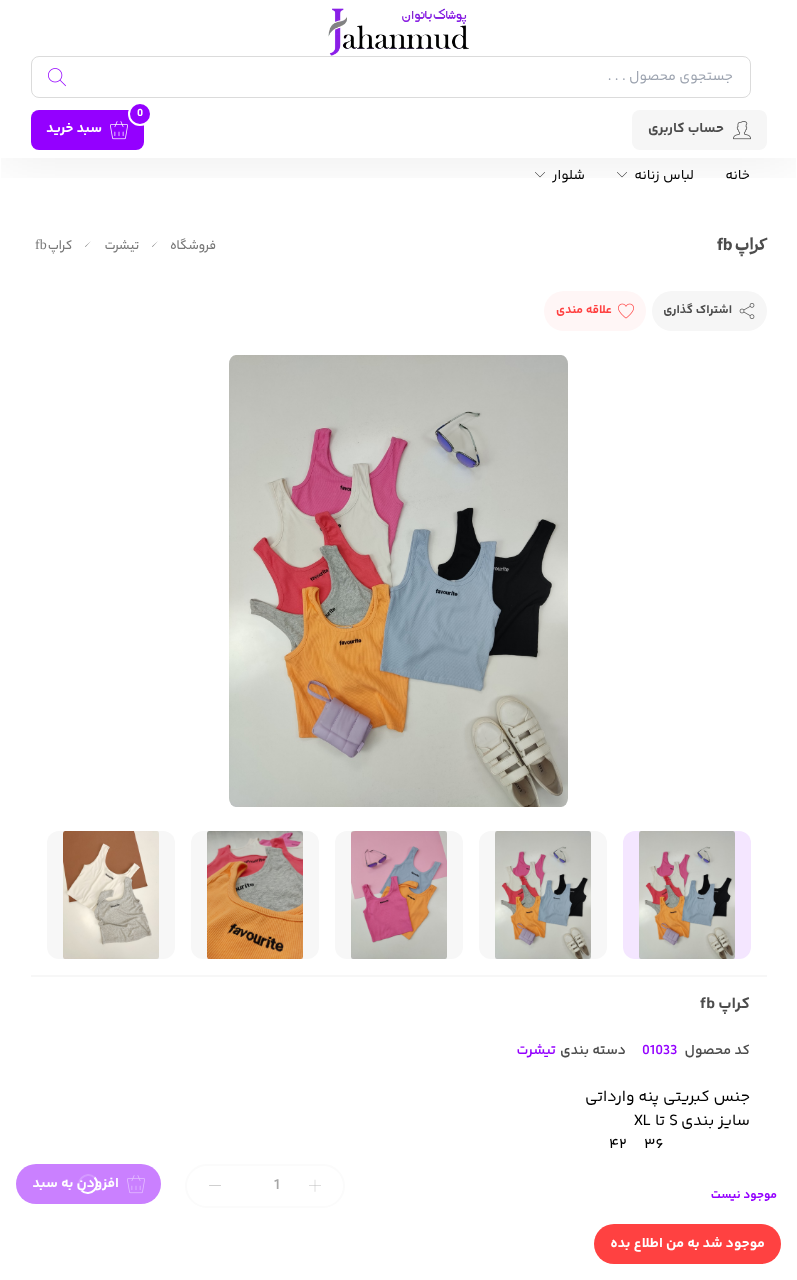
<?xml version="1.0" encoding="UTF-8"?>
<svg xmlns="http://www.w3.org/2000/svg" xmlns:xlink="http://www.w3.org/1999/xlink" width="797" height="1280">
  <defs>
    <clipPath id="clip1"><rect x="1" y="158" width="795" height="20" /></clipPath>
  </defs>
  <rect width="100%" height="100%" fill="#ffffff" />
  <g clip-path="url(#clip1)">
    <rect width="797" height="158" fill="#000000" fill-opacity="0.08" filter="blur(30px)" />
  </g>
  <image x="328" y="8" width="141" height="48" xlink:href="image1.png" />
  <rect x="31.5" y="56.5" width="719" height="41" rx="7.5" fill="none" stroke="#dbdbdb" />
  <image x="48" y="68" width="18" height="19" xlink:href="image2.png" />
  <rect x="632" y="110" width="135" height="40" rx="8" fill="#f6f6f6" />
  <image x="733" y="121" width="18" height="19" xlink:href="image3.png" />
  <rect x="31" y="110" width="113" height="40" rx="8" fill="#9400ff" />
  <circle cx="140" cy="114" r="11" fill="#9400ff" stroke="#ffffff" stroke-width="2" />
  <image x="110" y="121" width="18" height="19" xlink:href="image4.png" />
  <image x="617" y="172" width="10" height="6" xlink:href="image5.png" />
  <image x="535" y="172" width="10" height="6" xlink:href="image5.png" />
  <path d="M 152.5 247 l 5.5 -6 l -6 5.5 l 6 6 z" fill="#787878" />
  <path d="M 85.5 247 l 5.5 -6 l -6 5.5 l 6 6 z" fill="#787878" />
  <rect x="31" y="975" width="736" height="2" fill="#f7f7f7" />
  <rect x="652" y="291" width="115" height="40" rx="20" fill="#f6f6f6" />
  <image x="739" y="303" width="16" height="16" xlink:href="image6.png" />
  <rect x="544" y="291" width="102" height="40" rx="20" fill="#fff6f6" />
  <image x="618" y="303" width="16" height="16" xlink:href="image7.png" />
  <image x="229" y="355" width="339" height="452" xlink:href="image8.png" />
  <rect x="623" y="831" width="128" height="128" rx="12" fill="#f4e6ff" />
  <image x="639" y="831" width="96" height="128" xlink:href="image9.png" />
  <rect x="479" y="831" width="128" height="128" rx="12" fill="#f7f7f7" />
  <image x="495" y="831" width="96" height="128" xlink:href="image10.png" />
  <rect x="335" y="831" width="128" height="128" rx="12" fill="#f7f7f7" />
  <image x="351" y="831" width="96" height="128" xlink:href="image11.png" />
  <rect x="191" y="831" width="128" height="128" rx="12" fill="#f7f7f7" />
  <image x="207" y="831" width="96" height="128" xlink:href="image12.png" />
  <rect x="47" y="831" width="128" height="128" rx="12" fill="#f7f7f7" />
  <image x="63" y="831" width="96" height="128" xlink:href="image13.png" />
  <rect x="186" y="1165" width="158" height="42" rx="21" fill="none" stroke="#fbfbfb" stroke-width="2" />
  <image x="309" y="1179" width="12" height="13" xlink:href="image14.png" />
  <image x="209" y="1185" width="12" height="1" xlink:href="image15.png" />
  <rect x="16" y="1164" width="145" height="40" rx="20" fill="#ca80ff" />
  <image x="127" y="1175" width="18" height="19" xlink:href="image16.png" />
  <path d="M 94.5 1177.5 c 8 8.5 -4.5 21 -13 13" fill="none" stroke="#ffffff" stroke-width="2" />
  <rect x="594" y="1224" width="187" height="40" rx="20" fill="#ff4141" />
  <text x="733" y="80" style="font-family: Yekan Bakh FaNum; font-size: 14px; direction: rtl; fill: #9ca3af">جستجوی محصول . . .</text>
  <text x="724" y="132" style="font-family: Yekan Bakh FaNum; font-size: 14px; font-weight: bold; direction: rtl; fill: #4c4c4c">حساب کاربری</text>
  <text x="137" y="116" style="font-family: Yekan Bakh FaNum; font-size: 11px; font-weight: bold; fill: #ffffff">0</text>
  <text x="102" y="132" style="font-family: Yekan Bakh FaNum; font-size: 14px; font-weight: bold; direction: rtl; fill: #ffffff">سبد خرید</text>
  <text x="750" y="179" style="font-family: Yekan Bakh FaNum; font-size: 14px; direction: rtl; fill: #000000">خانه</text>
  <text x="694" y="179" style="font-family: Yekan Bakh FaNum; font-size: 14px; direction: rtl; fill: #000000">لباس زنانه</text>
  <text x="585" y="179" style="font-family: Yekan Bakh FaNum; font-size: 14px; direction: rtl; fill: #000000">شلوار</text>
  <text x="766" y="250" style="font-family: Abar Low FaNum; font-size: 16px; font-weight: 800; direction: rtl; fill: #4c4c4c">کراپ</text>
  <text x="717" y="250" style="font-family: Abar Low FaNum; font-size: 16px; font-weight: 800; fill: #4c4c4c">fb</text>
  <text x="216" y="249" style="font-family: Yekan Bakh; font-size: 14px; font-weight: 500; direction: rtl; fill: #787878">فروشگاه</text>
  <text x="139" y="249" style="font-family: Yekan Bakh; font-size: 14px; font-weight: 500; direction: rtl; fill: #787878">تیشرت</text>
  <text x="72" y="249" style="font-family: Yekan Bakh; font-size: 14px; font-weight: 500; direction: rtl; fill: #787878">کراپ</text>
  <text x="35" y="249" style="font-family: Liberation Serif; font-size: 14px; fill: #787878">fb</text>
  <text x="732" y="313" style="font-family: Yekan Bakh FaNum; font-size: 12px; font-weight: bold; direction: rtl; fill: #4c4c4c">اشتراک گذاری</text>
  <text x="612" y="313" style="font-family: Yekan Bakh FaNum; font-size: 12px; font-weight: bold; direction: rtl; fill: #ff4141">علاقه مندی</text>
  <text x="750" y="1008" style="font-family: Yekan Bakh FaNum; font-size: 16px; font-weight: bold; direction: rtl; fill: #4c4c4c">کراپ</text>
  <text x="700" y="1008" style="font-family: Yekan Bakh FaNum; font-size: 16px; font-weight: bold; fill: #4c4c4c">fb</text>
  <text x="750" y="1054" style="font-family: Yekan Bakh FaNum; font-size: 14px; font-weight: 600; direction: rtl; fill: #4c4c4c">کد محصول</text>
  <text x="642" y="1054" style="font-family: Yekan Bakh FaNum; font-size: 14px; font-weight: 600; fill: #9400ff">01033</text>
  <text x="626" y="1054" style="font-family: Yekan Bakh FaNum; font-size: 14px; font-weight: 600; direction: rtl; fill: #4c4c4c">دسته بندی</text>
  <text x="556" y="1054" style="font-family: Yekan Bakh FaNum; font-size: 14px; font-weight: 600; direction: rtl; fill: #9400ff">تیشرت</text>
  <text x="750" y="1101" style="font-family: Yekan Bakh FaNum; font-size: 16px; direction: rtl; fill: #000000">جنس کبریتی پنه وارداتی</text>
  <text x="750" y="1125" style="font-family: Yekan Bakh FaNum; font-size: 16px; direction: rtl; fill: #000000">سایز بندی</text>
  <text x="669" y="1125" style="font-family: Yekan Bakh FaNum; font-size: 16px; fill: #000000">S</text>
  <text x="665" y="1125" style="font-family: Yekan Bakh FaNum; font-size: 16px; direction: rtl; fill: #000000">تا</text>
  <text x="634" y="1125" style="font-family: Yekan Bakh FaNum; font-size: 16px; fill: #000000">XL</text>
  <text x="644" y="1149" style="font-family: Yekan Bakh FaNum; font-size: 16px; fill: #000000">۳۶</text>
  <text x="609" y="1149" style="font-family: Yekan Bakh FaNum; font-size: 16px; fill: #000000">۴۲</text>
  <rect x="610" y="1148" width="49" height="2" fill="#ffffff" />
  <text x="274" y="1189" style="font-family: Yekan Bakh FaNum; font-size: 15px; font-weight: 600; fill: #a6a6a6">1</text>
  <text x="119" y="1187" style="font-family: Yekan Bakh FaNum; font-size: 14px; font-weight: bold; direction: rtl; fill: #ffffff">افزودن به سبد</text>
  <path d="M 81.5 1190.5 c -8 -8.5 4.5 -21 13 -13" fill="none" stroke="#ffffff" stroke-opacity="0.2" stroke-width="2" />
  <text x="777" y="1198" style="font-family: Yekan Bakh FaNum; font-size: 12px; font-weight: bold; direction: rtl; fill: #9400ff">موجود نیست</text>
  <text x="765" y="1247" style="font-family: Yekan Bakh FaNum; font-size: 14px; font-weight: bold; direction: rtl; fill: #ffffff">موجود شد به من اطلاع بده</text>
</svg>
